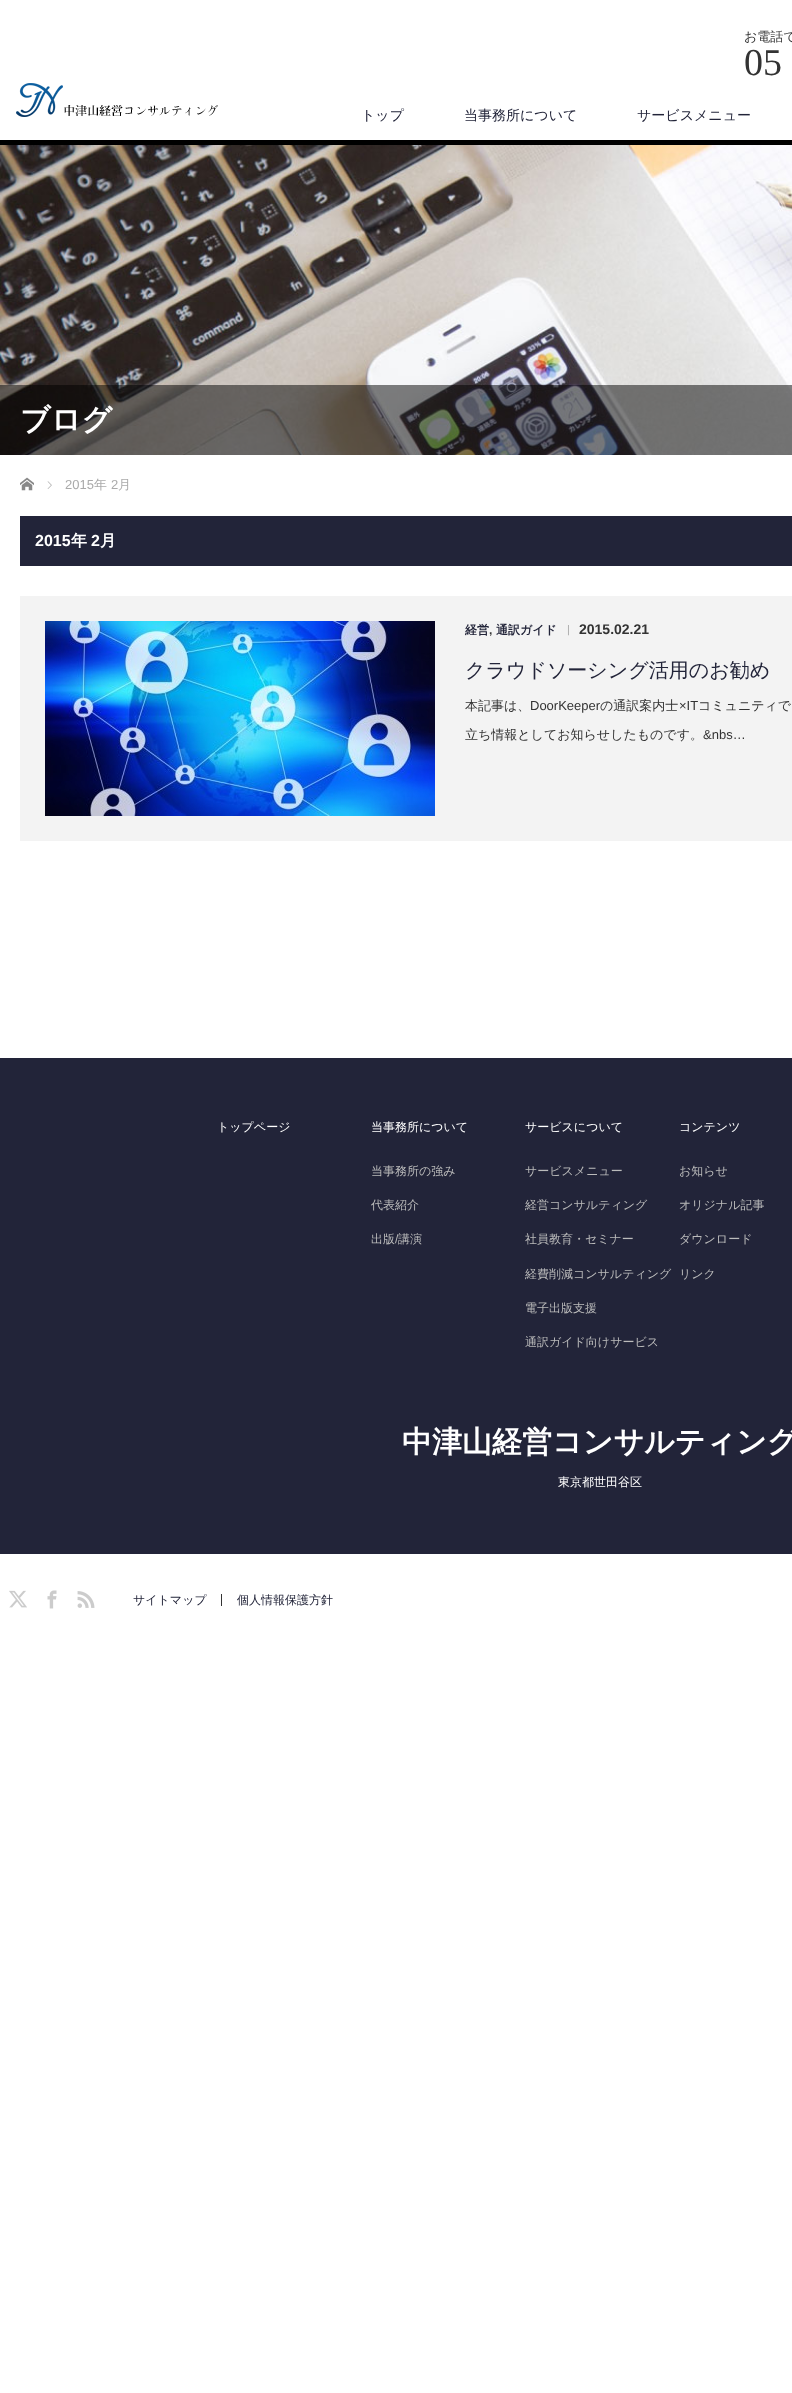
<?xml version="1.0" encoding="UTF-8"?>
<svg xmlns="http://www.w3.org/2000/svg" xmlns:xlink="http://www.w3.org/1999/xlink" width="792" height="2393">
  <rect width="100%" height="100%" fill="#ffffff" />
  <rect y="140" width="792" height="5" fill="#000000" />
  <image x="16" y="83" width="202" height="34" xlink:href="image1.png" />
  <image x="0" y="145" width="792" height="310" xlink:href="image2.png" />
  <rect y="385" width="792" height="70" fill="#000000" fill-opacity="0.5" />
  <image x="20" y="477" width="14" height="14" xlink:href="image3.png" />
  <image x="47" y="481" width="5" height="8" xlink:href="image4.png" />
  <rect x="20" y="516" width="772" height="50" fill="#222439" />
  <rect x="20" y="596" width="772" height="245" fill="#f3f3f3" />
  <image x="45" y="621" width="390" height="195" xlink:href="image5.png" />
  <rect y="1058" width="792" height="496" fill="#222439" />
  <image x="9" y="1590" width="18" height="18" xlink:href="image6.png" />
  <image x="47" y="1590" width="10" height="19" xlink:href="image7.png" />
  <image x="77" y="1591" width="18" height="17" xlink:href="image8.png" />
  <rect x="221" y="1594" width="1" height="12" fill="#333333" />
  <text x="744" y="41" style="font-family: WenQuanYi Zen Hei; font-size: 13px; font-weight: 500; fill: #333333">お電話で</text>
  <text x="744" y="75" style="font-family: Liberation Serif; font-size: 38px; fill: #333333">05</text>
  <text x="361" y="120" style="font-family: WenQuanYi Zen Hei; font-size: 14px; font-weight: 500; fill: #222439">トップ</text>
  <text x="464" y="120" style="font-family: WenQuanYi Zen Hei; font-size: 14px; font-weight: 500; fill: #222439">当事務所について</text>
  <text x="637" y="120" style="font-family: WenQuanYi Zen Hei; font-size: 14px; font-weight: 500; fill: #222439">サービスメニュー</text>
  <text x="20" y="430" style="font-family: WenQuanYi Zen Hei; font-size: 30px; font-weight: bold; fill: #ffffff">ブログ</text>
  <text x="65" y="489" style="font-family: Liberation Sans; font-size: 13px; fill: #aaaaaa">2015</text>
  <text x="94" y="489" style="font-family: WenQuanYi Zen Hei; font-size: 13px; font-weight: 500; fill: #aaaaaa">年</text>
  <text x="111" y="489" style="font-family: Liberation Sans; font-size: 13px; fill: #aaaaaa">2</text>
  <text x="118" y="489" style="font-family: WenQuanYi Zen Hei; font-size: 13px; font-weight: 500; fill: #aaaaaa">月</text>
  <text x="35" y="546" style="font-family: Liberation Sans; font-size: 16px; font-weight: bold; fill: #ffffff">2015</text>
  <text x="71" y="546" style="font-family: WenQuanYi Zen Hei; font-size: 16px; font-weight: bold; fill: #ffffff">年</text>
  <text x="91" y="546" style="font-family: Liberation Sans; font-size: 16px; font-weight: bold; fill: #ffffff">2</text>
  <text x="100" y="546" style="font-family: WenQuanYi Zen Hei; font-size: 16px; font-weight: bold; fill: #ffffff">月</text>
  <text x="465" y="634" style="font-family: WenQuanYi Zen Hei; font-size: 12px; font-weight: bold; fill: #222439">経営</text>
  <text x="489" y="634" style="font-family: Liberation Sans; font-size: 12px; font-weight: bold; fill: #333333">,</text>
  <text x="496" y="634" style="font-family: WenQuanYi Zen Hei; font-size: 12px; font-weight: bold; fill: #222439">通訳ガイド</text>
  <text x="567" y="633" style="font-family: Liberation Sans; font-size: 11px; fill: #aaaaaa">|</text>
  <text x="579" y="634" style="font-family: Liberation Sans; font-size: 14px; font-weight: bold; fill: #333333">2015.02.21</text>
  <text x="465" y="677" style="font-family: WenQuanYi Zen Hei; font-size: 20px; font-weight: 500; fill: #222439">クラウドソーシング活用のお勧め</text>
  <text x="465" y="710" style="font-family: WenQuanYi Zen Hei; font-size: 13px; font-weight: 500; fill: #333333">本記事は、</text>
  <text x="530" y="710" style="font-family: Liberation Sans; font-size: 13px; fill: #333333">DoorKeeper</text>
  <text x="600" y="710" style="font-family: WenQuanYi Zen Hei; font-size: 13px; font-weight: 500; fill: #333333">の通訳案内士</text>
  <text x="679" y="710" style="font-family: Liberation Sans; font-size: 13px; fill: #333333">×IT</text>
  <text x="698" y="710" style="font-family: WenQuanYi Zen Hei; font-size: 13px; font-weight: 500; fill: #333333">コミュニティで</text>
  <text x="465" y="739" style="font-family: WenQuanYi Zen Hei; font-size: 13px; font-weight: 500; fill: #333333">立ち情報としてお知らせしたものです。</text>
  <text x="703" y="739" style="font-family: Liberation Sans; font-size: 13px; fill: #333333">&amp;nbs…</text>
  <text x="217" y="1131" style="font-family: WenQuanYi Zen Hei; font-size: 12px; font-weight: 500; fill: #ffffff">トップページ</text>
  <text x="371" y="1131" style="font-family: WenQuanYi Zen Hei; font-size: 12px; font-weight: 500; fill: #ffffff">当事務所について</text>
  <text x="371" y="1175" style="font-family: WenQuanYi Zen Hei; font-size: 12px; font-weight: 500; fill: #bbbbbb">当事務所の強み</text>
  <text x="371" y="1209" style="font-family: WenQuanYi Zen Hei; font-size: 12px; font-weight: 500; fill: #bbbbbb">代表紹介</text>
  <text x="371" y="1243" style="font-family: WenQuanYi Zen Hei; font-size: 12px; font-weight: 500; fill: #bbbbbb">出版</text>
  <text x="395" y="1243" style="font-family: Liberation Sans; font-size: 12px; fill: #bbbbbb">/</text>
  <text x="398" y="1243" style="font-family: WenQuanYi Zen Hei; font-size: 12px; font-weight: 500; fill: #bbbbbb">講演</text>
  <text x="525" y="1131" style="font-family: WenQuanYi Zen Hei; font-size: 12px; font-weight: 500; fill: #ffffff">サービスについて</text>
  <text x="525" y="1175" style="font-family: WenQuanYi Zen Hei; font-size: 12px; font-weight: 500; fill: #bbbbbb">サービスメニュー</text>
  <text x="525" y="1209" style="font-family: WenQuanYi Zen Hei; font-size: 12px; font-weight: 500; fill: #bbbbbb">経営コンサルティング</text>
  <text x="525" y="1243" style="font-family: WenQuanYi Zen Hei; font-size: 12px; font-weight: 500; fill: #bbbbbb">社員教育・セミナー</text>
  <text x="525" y="1278" style="font-family: WenQuanYi Zen Hei; font-size: 12px; font-weight: 500; fill: #bbbbbb">経費削減コンサルティング</text>
  <text x="525" y="1312" style="font-family: WenQuanYi Zen Hei; font-size: 12px; font-weight: 500; fill: #bbbbbb">電子出版支援</text>
  <text x="525" y="1346" style="font-family: WenQuanYi Zen Hei; font-size: 12px; font-weight: 500; fill: #bbbbbb">通訳ガイド向けサービス</text>
  <text x="679" y="1131" style="font-family: WenQuanYi Zen Hei; font-size: 12px; font-weight: 500; fill: #ffffff">コンテンツ</text>
  <text x="679" y="1175" style="font-family: WenQuanYi Zen Hei; font-size: 12px; font-weight: 500; fill: #bbbbbb">お知らせ</text>
  <text x="679" y="1209" style="font-family: WenQuanYi Zen Hei; font-size: 12px; font-weight: 500; fill: #bbbbbb">オリジナル記事</text>
  <text x="679" y="1243" style="font-family: WenQuanYi Zen Hei; font-size: 12px; font-weight: 500; fill: #bbbbbb">ダウンロード</text>
  <text x="679" y="1278" style="font-family: WenQuanYi Zen Hei; font-size: 12px; font-weight: 500; fill: #bbbbbb">リンク</text>
  <text x="402" y="1452" style="font-family: WenQuanYi Zen Hei; font-size: 30px; font-weight: bold; fill: #ffffff">中津山経営コンサルティング</text>
  <text x="558" y="1486" style="font-family: WenQuanYi Zen Hei; font-size: 12px; font-weight: 500; fill: #ffffff">東京都世田谷区</text>
  <text x="133" y="1604" style="font-family: WenQuanYi Zen Hei; font-size: 12px; font-weight: 500; fill: #222439">サイトマップ</text>
  <text x="237" y="1604" style="font-family: WenQuanYi Zen Hei; font-size: 12px; font-weight: 500; fill: #222439">個人情報保護方針</text>
</svg>
